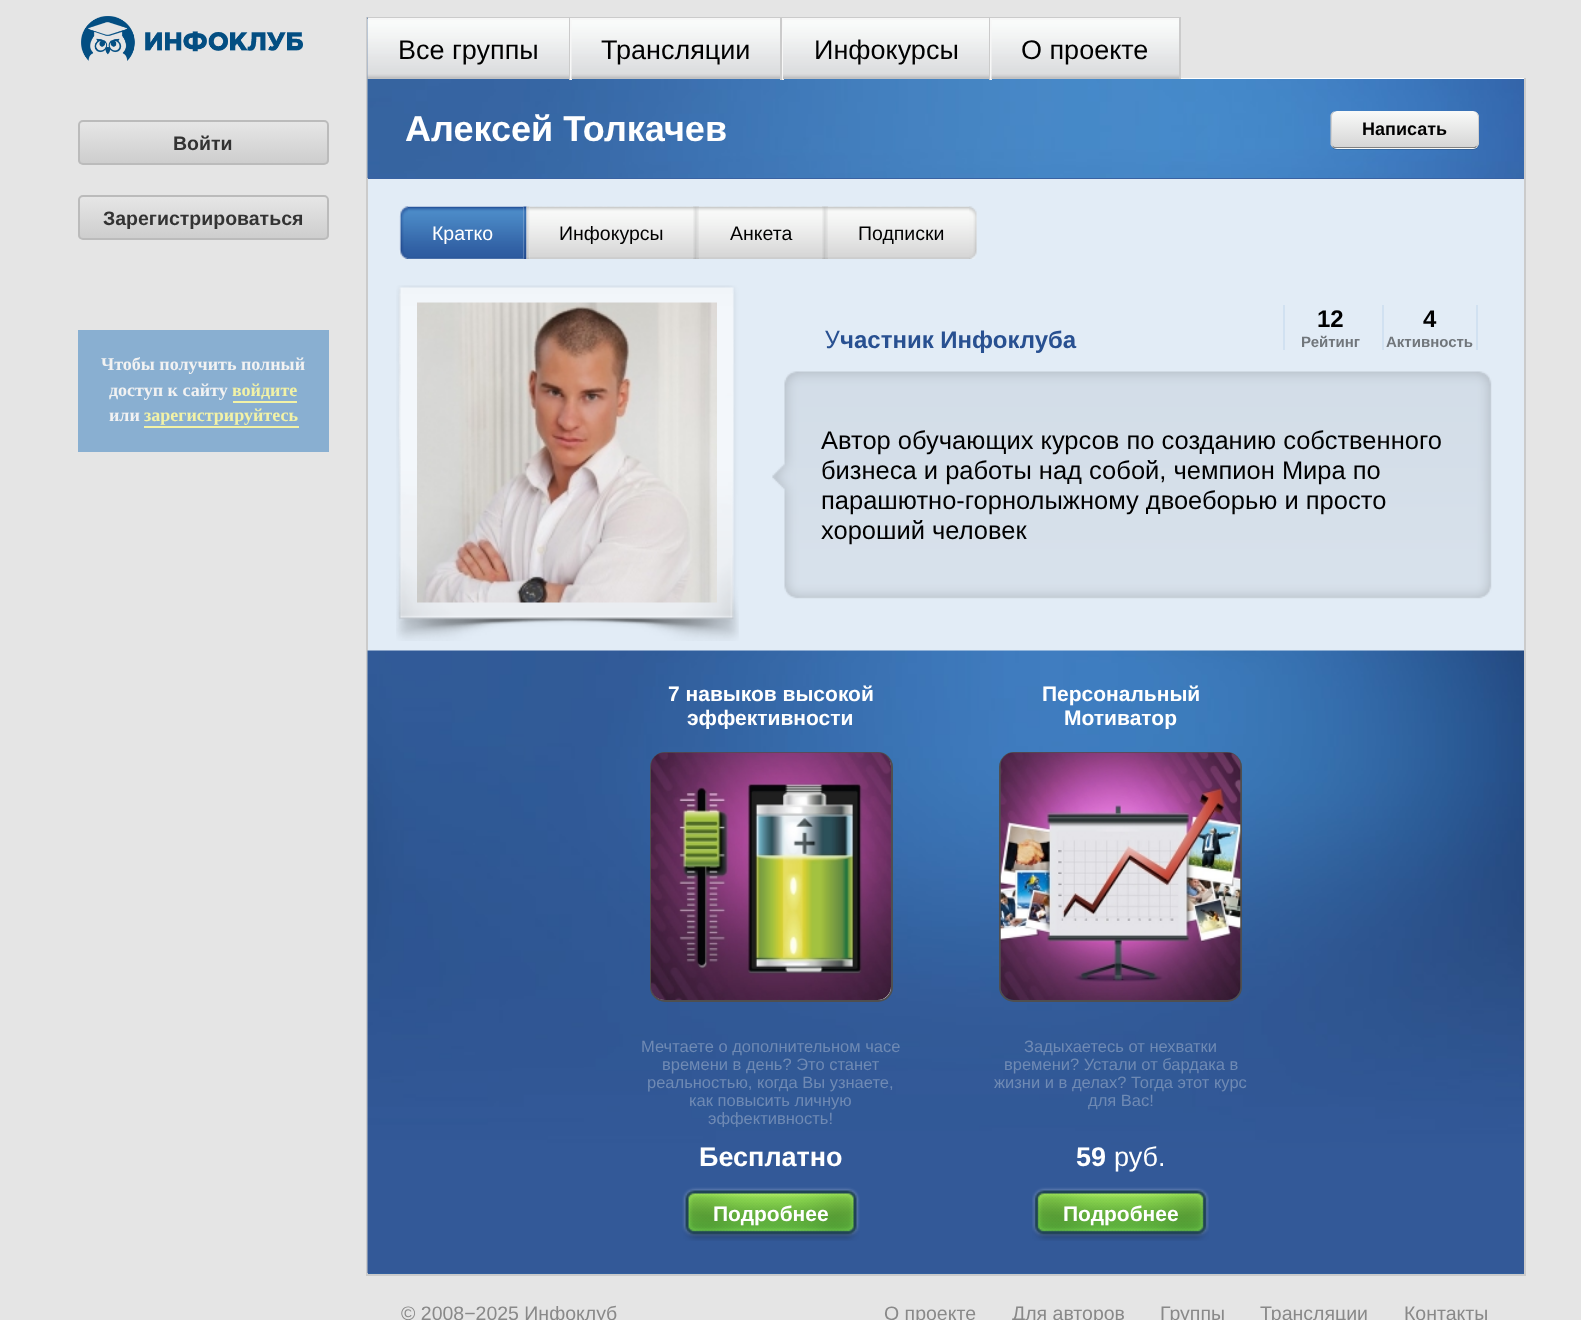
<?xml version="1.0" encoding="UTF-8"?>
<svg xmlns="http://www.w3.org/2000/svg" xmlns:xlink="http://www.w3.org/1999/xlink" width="1581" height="1320">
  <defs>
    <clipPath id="clip1"><rect x="78" y="120" width="251" height="45" rx="5" /></clipPath>
    <linearGradient id="g1" gradientUnits="userSpaceOnUse" x1="80" y1="164" x2="80" y2="122"><stop offset="0" stop-color="#cdcdcd" /><stop offset="1" stop-color="#e6e6e6" /></linearGradient>
    <clipPath id="clip2"><rect x="78" y="195" width="251" height="45" rx="5" /></clipPath>
    <linearGradient id="g2" gradientUnits="userSpaceOnUse" x1="80" y1="239" x2="80" y2="197"><stop offset="0" stop-color="#cdcdcd" /><stop offset="1" stop-color="#e6e6e6" /></linearGradient>
    <clipPath id="clip3"><rect x="1331" y="111" width="148" height="38" rx="6" /></clipPath>
    <linearGradient id="g3" gradientUnits="userSpaceOnUse" x1="1332" y1="147" x2="1332" y2="111"><stop offset="0" stop-color="#d6d6d6" /><stop offset="1" stop-color="#f9faf9" /></linearGradient>
    <linearGradient id="g4" gradientUnits="userSpaceOnUse" x1="1332" y1="183" x2="1332" y2="147"><stop offset="0" stop-color="#d6d6d6" /><stop offset="1" stop-color="#f9faf9" /></linearGradient>
    <clipPath id="clip4"><rect x="599" y="681" width="345" height="48" /></clipPath>
    <clipPath id="clip5"><rect x="599" y="1037" width="345" height="90" /></clipPath>
    <clipPath id="clip6"><rect x="948" y="681" width="345" height="48" /></clipPath>
  </defs>
  <rect width="100%" height="100%" fill="#e5e5e5" />
  <image x="81" y="16" width="222" height="45" xlink:href="image1.png" />
  <g clip-path="url(#clip1)">
    <rect x="78" y="122" width="251" height="42" fill="url(#g1)" />
  </g>
  <rect x="79" y="121" width="249" height="43" rx="4" fill="none" stroke="#bbbbbb" stroke-width="2" />
  <g clip-path="url(#clip2)">
    <rect x="78" y="197" width="251" height="42" fill="url(#g2)" />
  </g>
  <rect x="79" y="196" width="249" height="43" rx="4" fill="none" stroke="#bbbbbb" stroke-width="2" />
  <rect x="78" y="330" width="251" height="122" fill="#89afd1" />
  <rect x="233" y="401" width="64" height="2" fill="#f2f2a6" />
  <rect x="144" y="426" width="155" height="2" fill="#f2f2a6" />
  <rect x="366" y="17" width="2" height="63" fill="#cbcbcb" />
  <rect x="1524" y="78" width="2" height="1197" fill="#cbcbcb" />
  <rect x="366" y="1274" width="1160" height="2" fill="#cbcbcb" />
  <rect x="366" y="78" width="2" height="1197" fill="#cbcbcb" />
  <image x="367" y="17" width="1" height="62" xlink:href="image2.png" />
  <rect x="368" y="17" width="813" height="1" fill="#cbcbcb" />
  <rect x="1179" y="17" width="2" height="63" fill="#cbcbcb" />
  <image x="367" y="19" width="202" height="60" xlink:href="image3.png" />
  <rect x="368" y="18" width="202" height="2" fill="#f7f7f7" />
  <image x="367" y="79" width="1157" height="99" xlink:href="image7.png" />
  <rect x="569" y="18" width="1" height="62" fill="#cbcbcb" />
  <rect x="570" y="18" width="2" height="62" fill="#f7f7f7" />
  <image x="571" y="19" width="209" height="60" xlink:href="image4.png" />
  <rect x="572" y="18" width="210" height="2" fill="#f7f7f7" />
  <rect x="780" y="18" width="2" height="62" fill="#cbcbcb" />
  <rect x="782" y="18" width="2" height="62" fill="#f7f7f7" />
  <image x="783" y="20" width="206" height="59" xlink:href="image5.png" />
  <rect x="783" y="18" width="207" height="2" fill="#f7f7f7" />
  <rect x="989" y="18" width="1" height="62" fill="#cbcbcb" />
  <rect x="990" y="18" width="2" height="62" fill="#f7f7f7" />
  <image x="991" y="19" width="188" height="60" xlink:href="image6.png" />
  <rect x="992" y="18" width="187" height="2" fill="#f7f7f7" />
  <rect x="1181" y="78" width="343" height="1" fill="#ffffff" />
  <rect x="368" y="178" width="1156" height="1" fill="#3962a2" />
  <path d="M 1331 145 c 1 3 3 5 6 5 h 136 c 3 0 6 -3 6 -6 v -2 c 0 4 -3 6 -6 6 h -137 c -2 0 -4 -1 -5 -3 z" fill="#000000" fill-opacity="0.15" />
  <g clip-path="url(#clip3)">
    <path d="M 1337 111 h 136 c 3.5 0 6 2.5 6 6 v 30 h -148 v -30 c 0 -3.5 2.5 -6 6 -6 z" fill="url(#g3)" />
    <rect x="1331" y="147" width="148" height="2" fill="url(#g4)" />
  </g>
  <path d="M 1479 117 c 0 -3 -3 -6 -6 -6 c 2 0 5 3 5 6 v 25 c 0 1.5 -1 3 -2 3.5 l 1 1 c 1 -1 2 -2.5 2 -4.5 z" fill="#cecece" />
  <path d="M 1333 146 c 1 1 2 1 3 1 h 137 c 1 0 2 0 3 -1 l 1 1 c -1 1 -3 1 -4 1 h -137 c -1 0 -3 0 -4 -1 z" fill="#808080" />
  <path d="M 1336 111 c -2 0 -4 3 -4 6 v 25 c 0 1.5 0.5 3 1.5 3.5 l -1.5 1.5 c -0.5 -1 -1 -1.5 -1.5 -2.5 v -29.5 c 1 -2.5 3 -4 5.5 -4 z" fill="#cecece" />
  <rect x="368" y="179" width="1156" height="472" fill="#e2ecf6" />
  <image x="399" y="206" width="9" height="53" xlink:href="image8.png" />
  <image x="408" y="206" width="116" height="53" xlink:href="image9.png" />
  <image x="523" y="206" width="4" height="53" xlink:href="image10.png" />
  <image x="526" y="206" width="4" height="53" xlink:href="image11.png" />
  <image x="529" y="206" width="164" height="53" xlink:href="image12.png" />
  <image x="693" y="206" width="3" height="53" xlink:href="image13.png" />
  <image x="696" y="206" width="3" height="53" xlink:href="image14.png" />
  <image x="699" y="206" width="123" height="53" xlink:href="image15.png" />
  <image x="822" y="206" width="3" height="53" xlink:href="image13.png" />
  <image x="825" y="206" width="3" height="53" xlink:href="image14.png" />
  <image x="828" y="206" width="141" height="53" xlink:href="image16.png" />
  <image x="969" y="206" width="8" height="53" xlink:href="image17.png" />
  <image x="396" y="285" width="343" height="356" xlink:href="image18.png" />
  <image x="417" y="302" width="300" height="301" xlink:href="image19.png" />
  <rect x="1476" y="305" width="2" height="45" fill="#d1e1f1" />
  <rect x="1283" y="305" width="2" height="45" fill="#d1e1f1" />
  <rect x="1382" y="305" width="2" height="45" fill="#d1e1f1" />
  <image x="772" y="371" width="720" height="228" xlink:href="image20.png" />
  <rect x="368" y="1273" width="1156" height="1" fill="#32609e" />
  <image x="367" y="650" width="1157" height="623" xlink:href="image21.png" />
  <rect x="651" y="753" width="241" height="248" rx="14" fill="#ffffff" stroke="#4f4f4f" stroke-width="2" />
  <image x="651" y="752" width="240" height="248" xlink:href="image22.png" />
  <image x="682" y="1187" width="178" height="54" xlink:href="image23.png" />
  <rect x="1000" y="753" width="241" height="248" rx="14" fill="none" stroke="#4f4f4f" stroke-width="2" />
  <image x="1000" y="752" width="241" height="248" xlink:href="image24.png" />
  <image x="1032" y="1187" width="177" height="54" xlink:href="image25.png" />
  <text x="173" y="150" style="font-family: Liberation Sans; font-size: 19.5px; font-weight: bold; fill: #333333">Войти</text>
  <text x="103" y="225" style="font-family: Liberation Sans; font-size: 19.5px; font-weight: bold; fill: #333333">Зарегистрироваться</text>
  <text x="101" y="370" style="font-family: Liberation Serif; font-size: 18px; font-weight: bold; fill: #f2f2f2">Чтобы получить полный</text>
  <text x="109" y="396" style="font-family: Liberation Serif; font-size: 18px; font-weight: bold; fill: #f2f2f2">доступ к сайту</text>
  <text x="232" y="396" style="font-family: Liberation Serif; font-size: 18px; font-weight: bold; fill: #f2f2a6">войдите</text>
  <text x="109" y="421" style="font-family: Liberation Serif; font-size: 18px; font-weight: bold; fill: #f2f2f2">или</text>
  <text x="144" y="421" style="font-family: Liberation Serif; font-size: 18px; font-weight: bold; fill: #f2f2a6">зарегистрируйтесь</text>
  <text x="398" y="59" style="font-family: Liberation Sans; font-size: 27px; fill: #000000">Все группы</text>
  <text x="601" y="59" style="font-family: Liberation Sans; font-size: 27px; fill: #000000">Трансляции</text>
  <text x="814" y="59" style="font-family: Liberation Sans; font-size: 27px; fill: #000000">Инфокурсы</text>
  <text x="1021" y="59" style="font-family: Liberation Sans; font-size: 27px; fill: #000000">О проекте</text>
  <text x="405" y="141" style="font-family: Liberation Sans; font-size: 36px; font-weight: bold; fill: #ffffff">Алексей Толкачев</text>
  <text x="1362" y="135" style="font-family: Liberation Sans; font-size: 18px; font-weight: bold; fill: #000000">Написать</text>
  <text x="432" y="240" style="font-family: Liberation Sans; font-size: 19.5px; fill: #ffffff">Кратко</text>
  <text x="559" y="240" style="font-family: Liberation Sans; font-size: 19.5px; fill: #000000">Инфокурсы</text>
  <text x="730" y="240" style="font-family: Liberation Sans; font-size: 19.5px; fill: #000000">Анкета</text>
  <text x="858" y="240" style="font-family: Liberation Sans; font-size: 19.5px; fill: #000000">Подписки</text>
  <text x="825" y="348" style="font-family: Noto Sans; font-size: 24px; fill: #285091">У</text>
  <text x="840" y="348" style="font-family: Liberation Sans; font-size: 24px; font-weight: bold; fill: #285091">частник Инфоклуба</text>
  <text x="1317" y="327" style="font-family: Liberation Sans; font-size: 24px; font-weight: bold; fill: #000000">12</text>
  <text x="1301" y="347" style="font-family: Liberation Sans; font-size: 15px; font-weight: bold; fill: #71767b">Рейтинг</text>
  <text x="1423" y="327" style="font-family: Liberation Sans; font-size: 24px; font-weight: bold; fill: #000000">4</text>
  <text x="1386" y="347" style="font-family: Liberation Sans; font-size: 15px; font-weight: bold; fill: #71767b">Активность</text>
  <text x="821" y="449" style="font-family: Liberation Sans; font-size: 25.5px; fill: #000000">Автор обучающих курсов по созданию собственного</text>
  <text x="821" y="479" style="font-family: Liberation Sans; font-size: 25.5px; fill: #000000">бизнеса и работы над собой, чемпион Мира по</text>
  <text x="821" y="509" style="font-family: Liberation Sans; font-size: 25.5px; fill: #000000">парашютно-горнолыжному двоеборью и просто</text>
  <text x="821" y="539" style="font-family: Liberation Sans; font-size: 25.5px; fill: #000000">хороший человек</text>
  <text x="668" y="701" style="font-family: Liberation Sans; font-size: 21px; font-weight: bold; fill: #ffffff">7 навыков высокой</text>
  <g clip-path="url(#clip4)">
    <text x="687" y="725" style="font-family: Liberation Sans; font-size: 21px; font-weight: bold; fill: #ffffff">эффективности</text>
  </g>
  <text x="641" y="1052" style="font-family: Liberation Sans; font-size: 16.5px; fill: #6f8ab4">Мечтаете о дополнительном часе</text>
  <text x="662" y="1070" style="font-family: Liberation Sans; font-size: 16.5px; fill: #6f8ab4">времени в день? Это станет</text>
  <text x="647" y="1088" style="font-family: Liberation Sans; font-size: 16.5px; fill: #6f8ab4">реальностью, когда Вы узнаете,</text>
  <text x="689" y="1106" style="font-family: Liberation Sans; font-size: 16.5px; fill: #6f8ab4">как повысить личную</text>
  <g clip-path="url(#clip5)">
    <text x="708" y="1124" style="font-family: Liberation Sans; font-size: 16.5px; fill: #6f8ab4">эффективность!</text>
  </g>
  <text x="699" y="1166" style="font-family: Liberation Sans; font-size: 27px; font-weight: bold; fill: #ffffff">Бесплатно</text>
  <text x="713" y="1221" style="font-family: Liberation Sans; font-size: 21px; font-weight: bold; fill: #ffffff">Подробнее</text>
  <text x="1042" y="701" style="font-family: Liberation Sans; font-size: 21px; font-weight: bold; fill: #ffffff">Персональный</text>
  <g clip-path="url(#clip6)">
    <text x="1064" y="725" style="font-family: Liberation Sans; font-size: 21px; font-weight: bold; fill: #ffffff">Мотиватор</text>
  </g>
  <text x="1024" y="1052" style="font-family: Liberation Sans; font-size: 16.5px; fill: #6f8ab4">Задыхаетесь от нехватки</text>
  <text x="1004" y="1070" style="font-family: Liberation Sans; font-size: 16.5px; fill: #6f8ab4">времени? Устали от бардака в</text>
  <text x="994" y="1088" style="font-family: Liberation Sans; font-size: 16.5px; fill: #6f8ab4">жизни и в делах? Тогда этот курс</text>
  <text x="1088" y="1106" style="font-family: Liberation Sans; font-size: 16.5px; fill: #6f8ab4">для Вас!</text>
  <text x="1076" y="1166" style="font-family: Liberation Sans; font-size: 27px; font-weight: bold; fill: #ffffff">59</text>
  <text x="1114" y="1166" style="font-family: Liberation Sans; font-size: 27px; fill: #ffffff">руб.</text>
  <text x="1063" y="1221" style="font-family: Liberation Sans; font-size: 21px; font-weight: bold; fill: #ffffff">Подробнее</text>
  <text x="401" y="1320" style="font-family: Liberation Sans; font-size: 19.5px; fill: #898989">© 2008−2025 Инфоклуб</text>
  <text x="884" y="1320" style="font-family: Liberation Sans; font-size: 19.5px; fill: #898989">О проекте</text>
  <text x="1012" y="1320" style="font-family: Liberation Sans; font-size: 19.5px; fill: #898989">Для авторов</text>
  <text x="1160" y="1320" style="font-family: Liberation Sans; font-size: 19.5px; fill: #898989">Группы</text>
  <text x="1260" y="1320" style="font-family: Liberation Sans; font-size: 19.5px; fill: #898989">Трансляции</text>
  <text x="1404" y="1320" style="font-family: Liberation Sans; font-size: 19.5px; fill: #898989">Контакты</text>
</svg>
